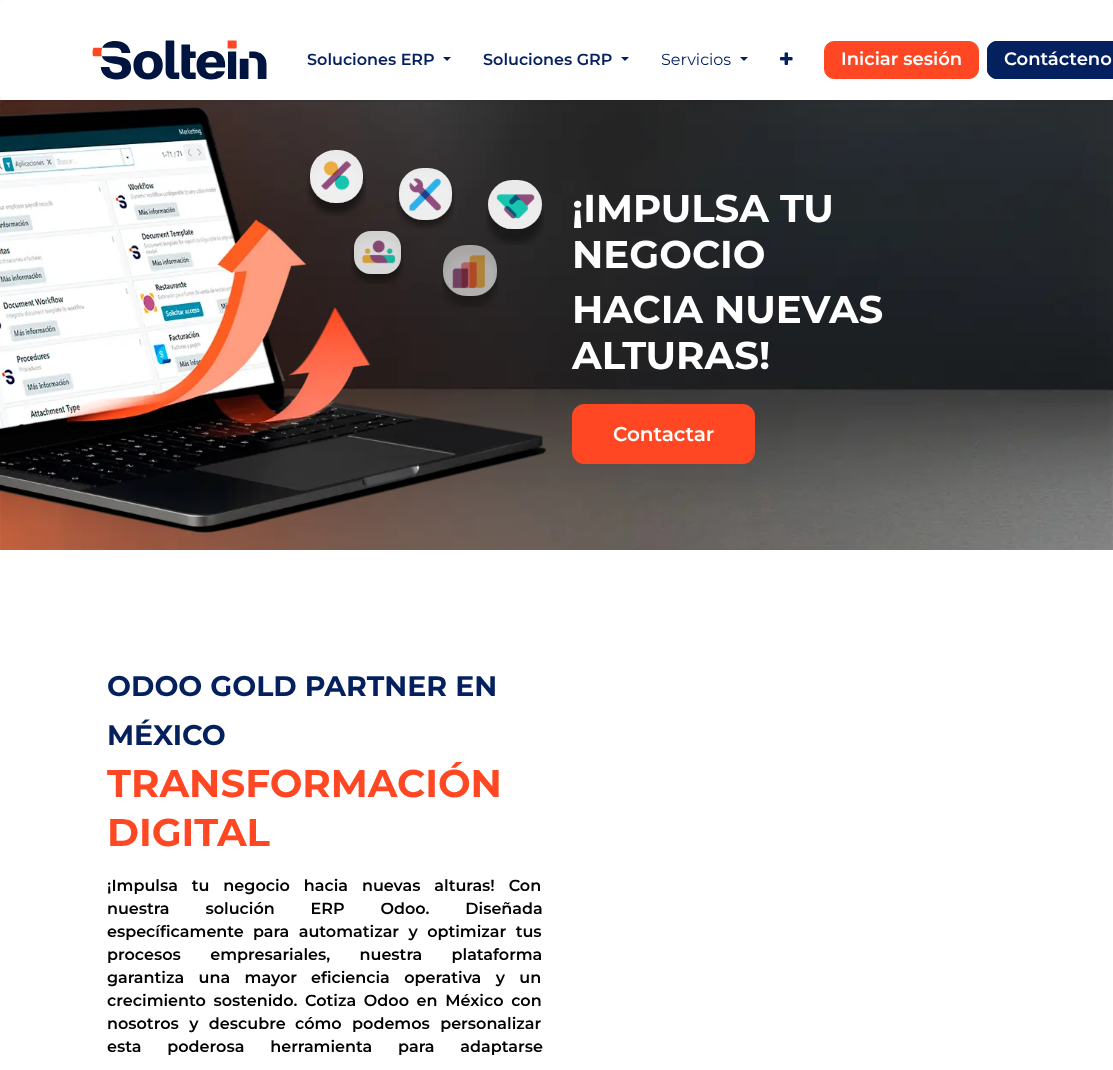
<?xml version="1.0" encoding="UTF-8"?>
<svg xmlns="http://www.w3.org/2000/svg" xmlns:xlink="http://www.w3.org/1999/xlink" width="1113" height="1070">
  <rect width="100%" height="100%" fill="#ffffff" />
  <image x="0" y="100" width="1113" height="450" xlink:href="image3.png" />
  <rect y="1" width="1113" height="100" rx="5" fill="#000000" fill-opacity="0.1" filter="blur(1.5px)" />
  <rect width="1113" height="100" rx="5" fill="#ffffff" />
  <image x="92" y="40" width="175" height="40" xlink:href="image1.png" />
  <path d="M 443 57 h 8 l -4 4 z" fill="#04205e" />
  <path d="M 621 57 h 8 l -4 4 z" fill="#04205e" />
  <path d="M 740 57 h 8 l -4 4 z" fill="#04205e" />
  <image x="780" y="52" width="13" height="13" xlink:href="image2.png" />
  <rect x="824.5" y="41.5" width="154" height="37" rx="9.5" fill="#ff4823" stroke="#ff4823" />
  <path d="M 997 41 h 116 v 38 h -116 c -5.5 0 -10 -4.5 -10 -10 v -18 c 0 -5.5 4.5 -10 10 -10 z" fill="#04205e" />
  <rect x="987.5" y="41.5" width="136" height="37" rx="9.5" fill="none" stroke="#04205e" />
  <image x="0" y="107" width="547" height="427" xlink:href="image4.png" />
  <image x="307" y="150" width="59" height="66" xlink:href="image5.png" />
  <image x="351" y="231" width="53" height="53" xlink:href="image6.png" />
  <image x="396" y="168" width="59" height="61" xlink:href="image7.png" />
  <image x="442" y="245" width="56" height="63" xlink:href="image8.png" />
  <image x="486" y="180" width="58" height="65" xlink:href="image9.png" />
  <rect x="572.5" y="404.5" width="182" height="59" rx="11.5" fill="#ff4823" stroke="#ff4823" />
  <text x="307" y="65" style="font-family: Montserrat; font-size: 16px; font-weight: 600; fill: #04205e">Soluciones ERP</text>
  <text x="483" y="65" style="font-family: Montserrat; font-size: 16px; font-weight: 600; fill: #04205e">Soluciones GRP</text>
  <text x="661" y="65" style="font-family: Montserrat; font-size: 16px; fill: #04205e">Servicios</text>
  <text x="841" y="65" style="font-family: Montserrat; font-size: 18px; font-weight: 600; fill: #ffffff">Iniciar sesión</text>
  <text x="1004" y="65" style="font-family: Montserrat; font-size: 18px; font-weight: 600; fill: #ffffff">Contácteno</text>
  <text x="572" y="222" style="font-family: Montserrat; font-size: 38.75px; font-weight: bold; fill: #ffffff">¡IMPULSA TU</text>
  <text x="572" y="268" style="font-family: Montserrat; font-size: 38.75px; font-weight: bold; fill: #ffffff">NEGOCIO</text>
  <text x="572" y="323" style="font-family: Montserrat; font-size: 38.75px; font-weight: bold; fill: #ffffff">HACIA NUEVAS</text>
  <text x="572" y="369" style="font-family: Montserrat; font-size: 38.75px; font-weight: bold; fill: #ffffff">ALTURAS!</text>
  <text x="613" y="441" style="font-family: Montserrat; font-size: 20px; font-weight: 600; fill: #ffffff">Contactar</text>
  <text x="107" y="696" style="font-family: Montserrat; font-size: 28.4px; font-weight: bold; fill: #04205e">ODOO GOLD PARTNER EN</text>
  <text x="107" y="745" style="font-family: Montserrat; font-size: 28.4px; font-weight: bold; fill: #04205e">MÉXICO</text>
  <text x="107" y="797" style="font-family: Montserrat; font-size: 38.75px; font-weight: bold; fill: #ff4823">TRANSFORMACIÓN</text>
  <text x="107" y="846" style="font-family: Montserrat; font-size: 38.75px; font-weight: bold; fill: #ff4823">DIGITAL</text>
  <text x="107" y="891" word-spacing="9.5" style="font-family: Montserrat; font-size: 16px; font-weight: 600; fill: #000000">¡Impulsa tu negocio hacia nuevas alturas! Con</text>
  <text x="107" y="914" word-spacing="31.5" style="font-family: Montserrat; font-size: 16px; font-weight: 600; fill: #000000">nuestra solución ERP Odoo. Diseñada</text>
  <text x="107" y="937" style="font-family: Montserrat; font-size: 16px; font-weight: 600; fill: #000000">específicamente</text>
  <text x="253" y="937" word-spacing="5" style="font-family: Montserrat; font-size: 16px; font-weight: 600; fill: #000000">para automatizar y optimizar tus</text>
  <text x="107" y="960" word-spacing="25" style="font-family: Montserrat; font-size: 16px; font-weight: 600; fill: #000000">procesos empresariales, nuestra plataforma</text>
  <text x="107" y="983" word-spacing="10" style="font-family: Montserrat; font-size: 16px; font-weight: 600; fill: #000000">garantiza una mayor</text>
  <text x="311" y="983" word-spacing="10" style="font-family: Montserrat; font-size: 16px; font-weight: 600; fill: #000000">eficiencia operativa y un</text>
  <text x="107" y="1006" word-spacing="3.25" style="font-family: Montserrat; font-size: 16px; font-weight: 600; fill: #000000">crecimiento sostenido. Cotiza Odoo en México con</text>
  <text x="107" y="1029" word-spacing="6" style="font-family: Montserrat; font-size: 16px; font-weight: 600; fill: #000000">nosotros y descubre</text>
  <text x="295" y="1029" word-spacing="6" style="font-family: Montserrat; font-size: 16px; font-weight: 600; fill: #000000">cómo podemos personalizar</text>
  <text x="107" y="1052" word-spacing="21.5" style="font-family: Montserrat; font-size: 16px; font-weight: 600; fill: #000000">esta poderosa herramienta para adaptarse</text>
</svg>
